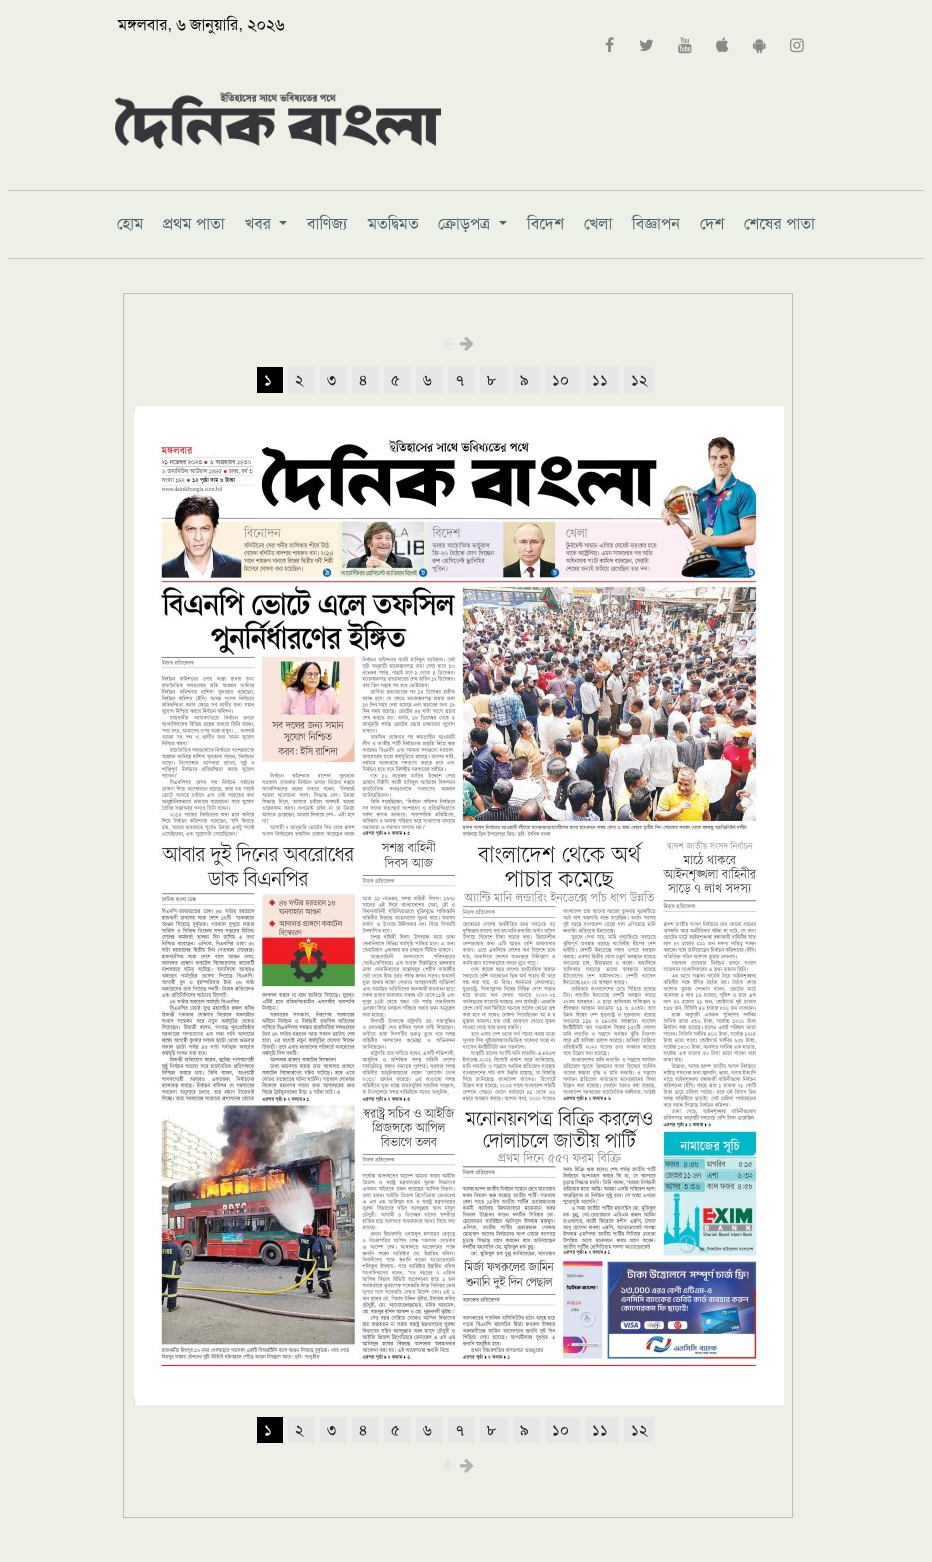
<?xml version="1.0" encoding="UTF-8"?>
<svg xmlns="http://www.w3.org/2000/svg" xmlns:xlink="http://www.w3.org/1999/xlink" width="932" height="1562">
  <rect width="100%" height="100%" fill="#ecf0e7" />
  <image x="605" y="37" width="9" height="16" xlink:href="image1.png" />
  <image x="639" y="39" width="15" height="12" xlink:href="image2.png" />
  <image x="678" y="37" width="14" height="17" xlink:href="image3.png" />
  <image x="716" y="37" width="13" height="16" xlink:href="image4.png" />
  <image x="753" y="38" width="13" height="16" xlink:href="image5.png" />
  <image x="790" y="38" width="14" height="15" xlink:href="image6.png" />
  <image x="115" y="92" width="326" height="57" xlink:href="image7.png" />
  <rect x="8" y="190" width="916" height="1" fill="#c4ccb9" />
  <rect x="8" y="258" width="916" height="1" fill="#c4ccb9" />
  <path d="M 279 221 h 8 l -4 4 z" fill="#516469" />
  <path d="M 499 221 h 8 l -4 4 z" fill="#516469" />
  <rect x="123.5" y="293.5" width="669" height="1224" fill="none" stroke="#bdbdbd" />
  <image x="443" y="337" width="13" height="14" xlink:href="image8.png" />
  <image x="460" y="337" width="14" height="14" xlink:href="image9.png" />
  <rect x="257" y="367" width="26" height="26" fill="#000000" />
  <rect x="288" y="367" width="27" height="26" fill="#e7e7e7" />
  <rect x="320" y="367" width="27" height="26" fill="#e7e7e7" />
  <rect x="352" y="367" width="27" height="26" fill="#e7e7e7" />
  <rect x="384" y="367" width="27" height="26" fill="#e7e7e7" />
  <rect x="416" y="367" width="27" height="26" fill="#e7e7e7" />
  <rect x="448" y="367" width="27" height="26" fill="#e7e7e7" />
  <rect x="480" y="367" width="28" height="26" fill="#e7e7e7" />
  <rect x="513" y="367" width="27" height="26" fill="#e7e7e7" />
  <rect x="545" y="367" width="35" height="26" fill="#e7e7e7" />
  <rect x="585" y="367" width="34" height="26" fill="#e7e7e7" />
  <rect x="624" y="367" width="30" height="26" fill="#e7e7e7" />
  <image x="134" y="406" width="650" height="999" xlink:href="image10.png" />
  <rect x="257" y="1417" width="26" height="26" fill="#000000" />
  <rect x="288" y="1417" width="27" height="26" fill="#e7e7e7" />
  <rect x="320" y="1417" width="27" height="26" fill="#e7e7e7" />
  <rect x="352" y="1417" width="27" height="26" fill="#e7e7e7" />
  <rect x="384" y="1417" width="27" height="26" fill="#e7e7e7" />
  <rect x="416" y="1417" width="27" height="26" fill="#e7e7e7" />
  <rect x="448" y="1417" width="27" height="26" fill="#e7e7e7" />
  <rect x="480" y="1417" width="28" height="26" fill="#e7e7e7" />
  <rect x="513" y="1417" width="27" height="26" fill="#e7e7e7" />
  <rect x="545" y="1417" width="35" height="26" fill="#e7e7e7" />
  <rect x="585" y="1417" width="34" height="26" fill="#e7e7e7" />
  <rect x="624" y="1417" width="30" height="26" fill="#e7e7e7" />
  <image x="443" y="1459" width="13" height="14" xlink:href="image8.png" />
  <image x="460" y="1459" width="14" height="14" xlink:href="image9.png" />
  <text x="118" y="30" style="font-family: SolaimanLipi; font-size: 16px; fill: #000000">মঙ্গলবার, ৬ জানুয়ারি, ২০২৬</text>
  <text x="117" y="229" style="font-family: SolaimanLipi; font-size: 16px; fill: #516469">হোম</text>
  <text x="163" y="229" style="font-family: SolaimanLipi; font-size: 16px; fill: #516469">প্রথম পাতা</text>
  <text x="245" y="229" style="font-family: SolaimanLipi; font-size: 16px; fill: #516469">খবর</text>
  <text x="307" y="229" style="font-family: SolaimanLipi; font-size: 16px; fill: #516469">বাণিজ্য</text>
  <text x="368" y="229" style="font-family: SolaimanLipi; font-size: 16px; fill: #516469">মতদ্বিমত</text>
  <text x="438" y="229" style="font-family: SolaimanLipi; font-size: 16px; fill: #516469">ক্রোড়পত্র</text>
  <text x="527" y="229" style="font-family: SolaimanLipi; font-size: 16px; fill: #516469">বিদেশ</text>
  <text x="584" y="229" style="font-family: SolaimanLipi; font-size: 16px; fill: #516469">খেলা</text>
  <text x="632" y="229" style="font-family: SolaimanLipi; font-size: 16px; fill: #516469">বিজ্ঞাপন</text>
  <text x="700" y="229" style="font-family: SolaimanLipi; font-size: 16px; fill: #516469">দেশ</text>
  <text x="744" y="229" style="font-family: SolaimanLipi; font-size: 16px; fill: #516469">শেষের পাতা</text>
  <text x="264" y="385" style="font-family: SolaimanLipi; font-size: 15px; fill: #ffffff">১</text>
  <text x="295" y="385" style="font-family: SolaimanLipi; font-size: 15px; fill: #222222">২</text>
  <text x="327" y="385" style="font-family: SolaimanLipi; font-size: 15px; fill: #222222">৩</text>
  <text x="359" y="385" style="font-family: SolaimanLipi; font-size: 15px; fill: #222222">৪</text>
  <text x="391" y="385" style="font-family: SolaimanLipi; font-size: 15px; fill: #222222">৫</text>
  <text x="423" y="385" style="font-family: SolaimanLipi; font-size: 15px; fill: #222222">৬</text>
  <text x="455" y="385" style="font-family: SolaimanLipi; font-size: 15px; fill: #222222">৭</text>
  <text x="487" y="385" style="font-family: SolaimanLipi; font-size: 15px; fill: #222222">৮</text>
  <text x="520" y="385" style="font-family: SolaimanLipi; font-size: 15px; fill: #222222">৯</text>
  <text x="552" y="385" style="font-family: SolaimanLipi; font-size: 15px; fill: #222222">১০</text>
  <text x="592" y="385" style="font-family: SolaimanLipi; font-size: 15px; fill: #222222">১১</text>
  <text x="631" y="385" style="font-family: SolaimanLipi; font-size: 15px; fill: #222222">১২</text>
  <text x="264" y="1435" style="font-family: SolaimanLipi; font-size: 15px; fill: #ffffff">১</text>
  <text x="295" y="1435" style="font-family: SolaimanLipi; font-size: 15px; fill: #222222">২</text>
  <text x="327" y="1435" style="font-family: SolaimanLipi; font-size: 15px; fill: #222222">৩</text>
  <text x="359" y="1435" style="font-family: SolaimanLipi; font-size: 15px; fill: #222222">৪</text>
  <text x="391" y="1435" style="font-family: SolaimanLipi; font-size: 15px; fill: #222222">৫</text>
  <text x="423" y="1435" style="font-family: SolaimanLipi; font-size: 15px; fill: #222222">৬</text>
  <text x="455" y="1435" style="font-family: SolaimanLipi; font-size: 15px; fill: #222222">৭</text>
  <text x="487" y="1435" style="font-family: SolaimanLipi; font-size: 15px; fill: #222222">৮</text>
  <text x="520" y="1435" style="font-family: SolaimanLipi; font-size: 15px; fill: #222222">৯</text>
  <text x="552" y="1435" style="font-family: SolaimanLipi; font-size: 15px; fill: #222222">১০</text>
  <text x="592" y="1435" style="font-family: SolaimanLipi; font-size: 15px; fill: #222222">১১</text>
  <text x="631" y="1435" style="font-family: SolaimanLipi; font-size: 15px; fill: #222222">১২</text>
</svg>
